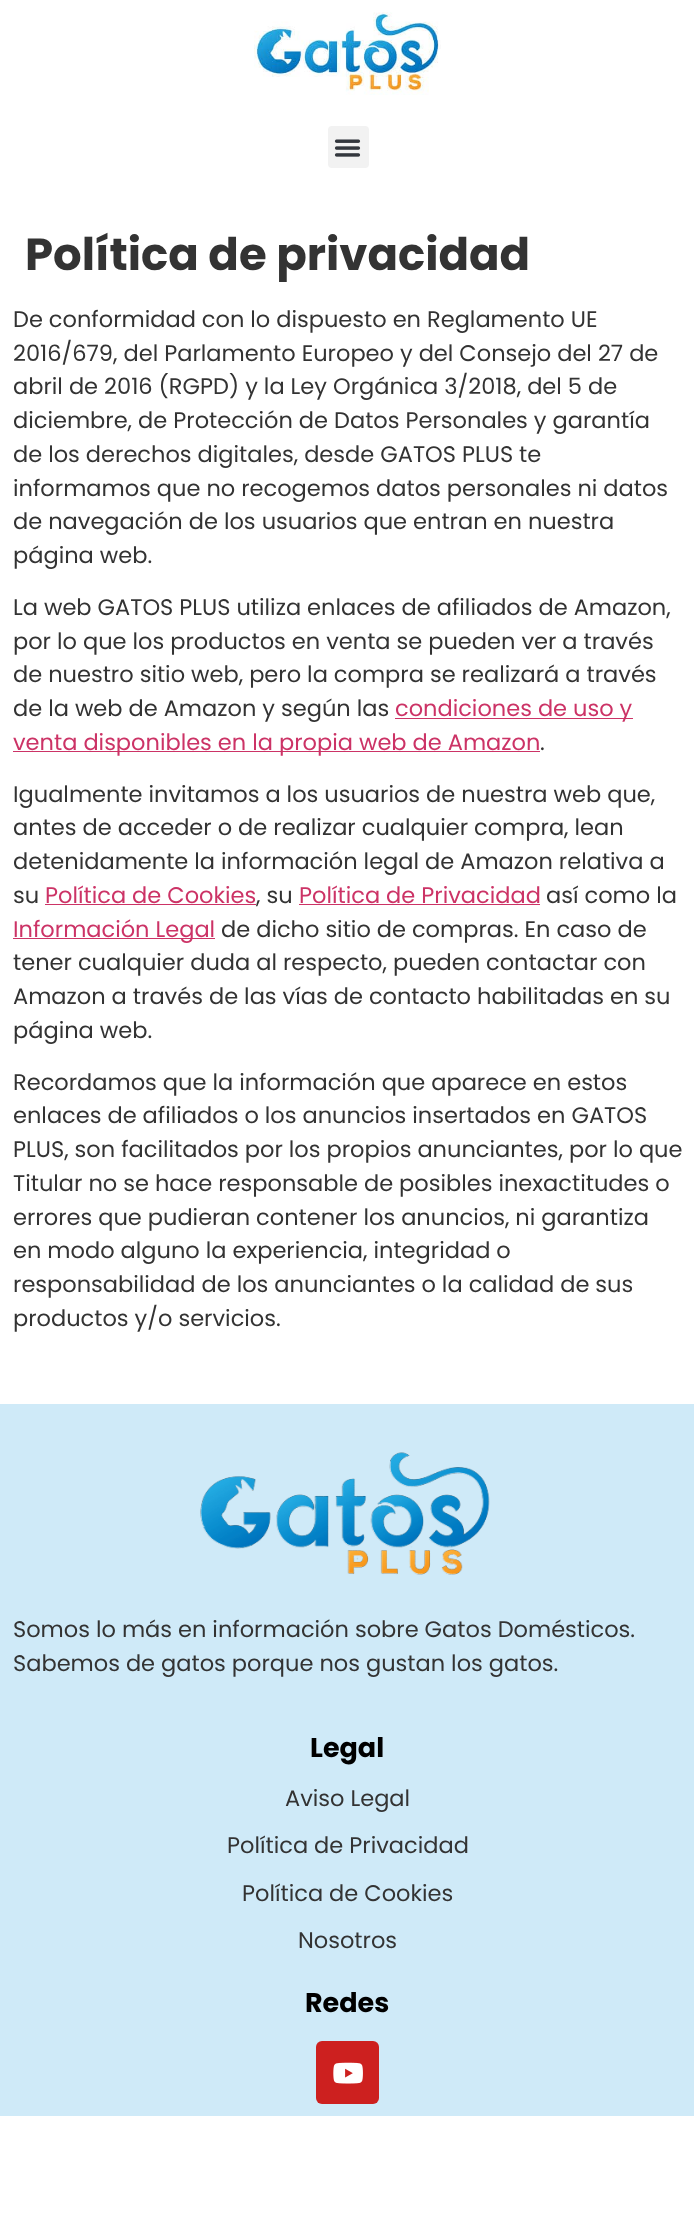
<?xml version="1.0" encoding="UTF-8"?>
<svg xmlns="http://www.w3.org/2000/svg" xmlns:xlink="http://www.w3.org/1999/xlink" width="694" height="2220">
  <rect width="100%" height="100%" fill="#ffffff" />
  <image x="254" y="12" width="187" height="83" xlink:href="image1.png" />
  <rect x="328" y="126" width="41" height="42" rx="4" fill="#f2f2f2" />
  <image x="334" y="139" width="27" height="18" xlink:href="image2.png" />
  <rect x="395" y="718" width="238" height="1" fill="#cc3366" />
  <rect x="13" y="751" width="527" height="1" fill="#cc3366" />
  <rect x="45" y="904" width="211" height="1" fill="#cc3366" />
  <rect x="299" y="904" width="241" height="1" fill="#cc3366" />
  <rect x="13" y="938" width="202" height="1" fill="#cc3366" />
  <rect y="1404" width="694" height="712" fill="#cfeaf8" />
  <image x="200" y="1452" width="290" height="123" xlink:href="image3.png" />
  <rect x="316" y="2041" width="63" height="63" rx="6" fill="#cd201f" />
  <image x="333" y="2062" width="30" height="22" xlink:href="image4.png" />
  <text x="25" y="270" style="font-family: Poppins; font-size: 45px; font-weight: bold; fill: #333333">Política de privacidad</text>
  <text x="13" y="327" style="font-family: Poppins; font-size: 22.5px; fill: #333333">De conformidad con lo dispuesto en Reglamento UE</text>
  <text x="13" y="361" style="font-family: Poppins; font-size: 22.5px; fill: #333333">2016/679, del Parlamento Europeo y del Consejo del 27 de</text>
  <text x="13" y="394" style="font-family: Poppins; font-size: 22.5px; fill: #333333">abril de 2016 (RGPD) y la Ley Orgánica 3/2018, del 5 de</text>
  <text x="13" y="428" style="font-family: Poppins; font-size: 22.5px; fill: #333333">diciembre, de Protección de Datos Personales y garantía</text>
  <text x="13" y="462" style="font-family: Poppins; font-size: 22.5px; fill: #333333">de los derechos digitales, desde GATOS PLUS te</text>
  <text x="13" y="496" style="font-family: Poppins; font-size: 22.5px; fill: #333333">informamos que no recogemos datos personales ni datos</text>
  <text x="13" y="529" style="font-family: Poppins; font-size: 22.5px; fill: #333333">de navegación de los usuarios que entran en nuestra</text>
  <text x="13" y="563" style="font-family: Poppins; font-size: 22.5px; fill: #333333">página web.</text>
  <text x="13" y="615" style="font-family: Poppins; font-size: 22.5px; fill: #333333">La web GATOS PLUS utiliza enlaces de afiliados de Amazon,</text>
  <text x="13" y="649" style="font-family: Poppins; font-size: 22.5px; fill: #333333">por lo que los productos en venta se pueden ver a través</text>
  <text x="13" y="682" style="font-family: Poppins; font-size: 22.5px; fill: #333333">de nuestro sitio web, pero la compra se realizará a través</text>
  <text x="13" y="716" style="font-family: Poppins; font-size: 22.5px; fill: #333333">de la web de Amazon y según las</text>
  <text x="395" y="716" style="font-family: Poppins; font-size: 22.5px; fill: #cc3366">condiciones de uso y</text>
  <text x="13" y="750" style="font-family: Poppins; font-size: 22.5px; fill: #cc3366">venta disponibles en la propia web de Amazon</text>
  <text x="540" y="750" style="font-family: Poppins; font-size: 22.5px; fill: #333333">.</text>
  <text x="13" y="802" style="font-family: Poppins; font-size: 22.5px; fill: #333333">Igualmente invitamos a los usuarios de nuestra web que,</text>
  <text x="13" y="835" style="font-family: Poppins; font-size: 22.5px; fill: #333333">antes de acceder o de realizar cualquier compra, lean</text>
  <text x="13" y="869" style="font-family: Poppins; font-size: 22.5px; fill: #333333">detenidamente la información legal de Amazon relativa a</text>
  <text x="13" y="903" style="font-family: Poppins; font-size: 22.5px; fill: #333333">su</text>
  <text x="45" y="903" style="font-family: Poppins; font-size: 22.5px; fill: #cc3366">Política de Cookies</text>
  <text x="256" y="903" style="font-family: Poppins; font-size: 22.5px; fill: #333333">, su</text>
  <text x="299" y="903" style="font-family: Poppins; font-size: 22.5px; fill: #cc3366">Política de Privacidad</text>
  <text x="546" y="903" style="font-family: Poppins; font-size: 22.5px; fill: #333333">así como la</text>
  <text x="13" y="937" style="font-family: Poppins; font-size: 22.5px; fill: #cc3366">Información Legal</text>
  <text x="221" y="937" style="font-family: Poppins; font-size: 22.5px; fill: #333333">de dicho sitio de compras. En caso de</text>
  <text x="13" y="970" style="font-family: Poppins; font-size: 22.5px; fill: #333333">tener cualquier duda al respecto, pueden contactar con</text>
  <text x="13" y="1004" style="font-family: Poppins; font-size: 22.5px; fill: #333333">Amazon a través de las vías de contacto habilitadas en su</text>
  <text x="13" y="1038" style="font-family: Poppins; font-size: 22.5px; fill: #333333">página web.</text>
  <text x="13" y="1090" style="font-family: Poppins; font-size: 22.5px; fill: #333333">Recordamos que la información que aparece en estos</text>
  <text x="13" y="1123" style="font-family: Poppins; font-size: 22.5px; fill: #333333">enlaces de afiliados o los anuncios insertados en GATOS</text>
  <text x="13" y="1157" style="font-family: Poppins; font-size: 22.5px; fill: #333333">PLUS, son facilitados por los propios anunciantes, por lo que</text>
  <text x="13" y="1191" style="font-family: Poppins; font-size: 22.5px; fill: #333333">Titular no se hace responsable de posibles inexactitudes o</text>
  <text x="13" y="1225" style="font-family: Poppins; font-size: 22.5px; fill: #333333">errores que pudieran contener los anuncios, ni garantiza</text>
  <text x="13" y="1258" style="font-family: Poppins; font-size: 22.5px; fill: #333333">en modo alguno la experiencia, integridad o</text>
  <text x="13" y="1292" style="font-family: Poppins; font-size: 22.5px; fill: #333333">responsabilidad de los anunciantes o la calidad de sus</text>
  <text x="13" y="1326" style="font-family: Poppins; font-size: 22.5px; fill: #333333">productos y/o servicios.</text>
  <text x="13" y="1637" style="font-family: Poppins; font-size: 22.5px; fill: #333333">Somos lo más en información sobre Gatos Domésticos.</text>
  <text x="13" y="1671" style="font-family: Poppins; font-size: 22.5px; fill: #333333">Sabemos de gatos porque nos gustan los gatos.</text>
  <text x="310" y="1757" style="font-family: Poppins; font-size: 27px; font-weight: bold; fill: #000000">Legal</text>
  <text x="285" y="1806" style="font-family: Poppins; font-size: 22.5px; fill: #333333">Aviso Legal</text>
  <text x="227" y="1853" style="font-family: Poppins; font-size: 22.5px; fill: #333333">Política de Privacidad</text>
  <text x="242" y="1901" style="font-family: Poppins; font-size: 22.5px; fill: #333333">Política de Cookies</text>
  <text x="298" y="1948" style="font-family: Poppins; font-size: 22.5px; fill: #333333">Nosotros</text>
  <text x="305" y="2012" style="font-family: Poppins; font-size: 27px; font-weight: bold; fill: #000000">Redes</text>
</svg>
